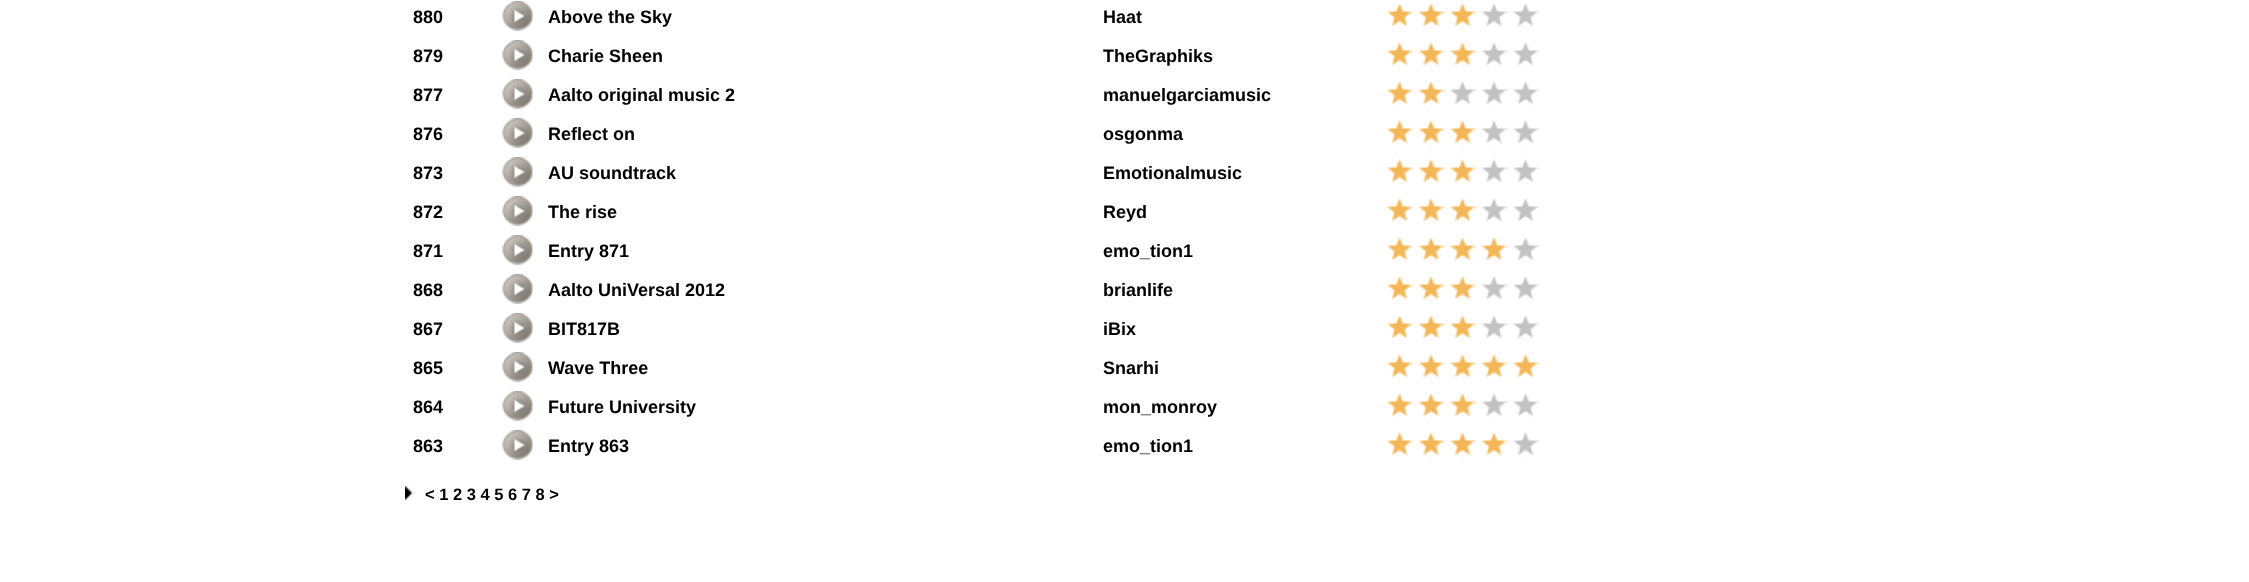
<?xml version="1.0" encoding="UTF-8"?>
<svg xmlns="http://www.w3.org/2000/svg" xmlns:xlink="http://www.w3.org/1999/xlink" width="2249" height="582">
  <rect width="100%" height="100%" fill="#ffffff" />
  <image x="502" y="1" width="31" height="30" xlink:href="image1.png" />
  <image x="1387" y="2" width="26" height="26" xlink:href="image2.png" />
  <image x="1419" y="2" width="26" height="26" xlink:href="image3.png" />
  <image x="1450" y="2" width="26" height="26" xlink:href="image2.png" />
  <image x="1482" y="2" width="26" height="26" xlink:href="image4.png" />
  <image x="1513" y="3" width="26" height="25" xlink:href="image5.png" />
  <image x="502" y="40" width="31" height="30" xlink:href="image1.png" />
  <image x="1387" y="41" width="26" height="26" xlink:href="image2.png" />
  <image x="1419" y="41" width="26" height="26" xlink:href="image3.png" />
  <image x="1450" y="41" width="26" height="26" xlink:href="image2.png" />
  <image x="1482" y="41" width="26" height="26" xlink:href="image4.png" />
  <image x="1513" y="42" width="26" height="25" xlink:href="image5.png" />
  <image x="502" y="79" width="31" height="30" xlink:href="image1.png" />
  <image x="1387" y="80" width="26" height="26" xlink:href="image2.png" />
  <image x="1419" y="80" width="26" height="26" xlink:href="image3.png" />
  <image x="1450" y="81" width="26" height="25" xlink:href="image6.png" />
  <image x="1482" y="80" width="26" height="26" xlink:href="image4.png" />
  <image x="1513" y="81" width="26" height="25" xlink:href="image5.png" />
  <image x="502" y="118" width="31" height="30" xlink:href="image1.png" />
  <image x="1387" y="119" width="26" height="26" xlink:href="image2.png" />
  <image x="1419" y="119" width="26" height="26" xlink:href="image3.png" />
  <image x="1450" y="119" width="26" height="26" xlink:href="image2.png" />
  <image x="1482" y="119" width="26" height="26" xlink:href="image4.png" />
  <image x="1513" y="120" width="26" height="25" xlink:href="image5.png" />
  <image x="502" y="157" width="31" height="30" xlink:href="image1.png" />
  <image x="1387" y="158" width="26" height="26" xlink:href="image2.png" />
  <image x="1419" y="158" width="26" height="26" xlink:href="image3.png" />
  <image x="1450" y="158" width="26" height="26" xlink:href="image2.png" />
  <image x="1482" y="158" width="26" height="26" xlink:href="image4.png" />
  <image x="1513" y="159" width="26" height="25" xlink:href="image5.png" />
  <image x="502" y="196" width="31" height="30" xlink:href="image1.png" />
  <image x="1387" y="197" width="26" height="26" xlink:href="image2.png" />
  <image x="1419" y="197" width="26" height="26" xlink:href="image3.png" />
  <image x="1450" y="197" width="26" height="26" xlink:href="image2.png" />
  <image x="1482" y="197" width="26" height="26" xlink:href="image4.png" />
  <image x="1513" y="198" width="26" height="25" xlink:href="image5.png" />
  <image x="502" y="235" width="31" height="30" xlink:href="image1.png" />
  <image x="1387" y="236" width="26" height="26" xlink:href="image2.png" />
  <image x="1419" y="236" width="26" height="26" xlink:href="image3.png" />
  <image x="1450" y="236" width="26" height="26" xlink:href="image2.png" />
  <image x="1482" y="236" width="26" height="26" xlink:href="image7.png" />
  <image x="1513" y="237" width="26" height="25" xlink:href="image5.png" />
  <image x="502" y="274" width="31" height="30" xlink:href="image1.png" />
  <image x="1387" y="275" width="26" height="26" xlink:href="image2.png" />
  <image x="1419" y="275" width="26" height="26" xlink:href="image3.png" />
  <image x="1450" y="275" width="26" height="26" xlink:href="image2.png" />
  <image x="1482" y="275" width="26" height="26" xlink:href="image4.png" />
  <image x="1513" y="276" width="26" height="25" xlink:href="image5.png" />
  <image x="502" y="313" width="31" height="30" xlink:href="image1.png" />
  <image x="1387" y="314" width="26" height="26" xlink:href="image2.png" />
  <image x="1419" y="314" width="26" height="26" xlink:href="image3.png" />
  <image x="1450" y="314" width="26" height="26" xlink:href="image2.png" />
  <image x="1482" y="314" width="26" height="26" xlink:href="image4.png" />
  <image x="1513" y="315" width="26" height="25" xlink:href="image5.png" />
  <image x="502" y="352" width="31" height="30" xlink:href="image1.png" />
  <image x="1387" y="353" width="26" height="26" xlink:href="image2.png" />
  <image x="1419" y="353" width="26" height="26" xlink:href="image3.png" />
  <image x="1450" y="353" width="26" height="26" xlink:href="image2.png" />
  <image x="1482" y="353" width="26" height="26" xlink:href="image7.png" />
  <image x="1513" y="353" width="26" height="26" xlink:href="image8.png" />
  <image x="502" y="391" width="31" height="30" xlink:href="image1.png" />
  <image x="1387" y="392" width="26" height="26" xlink:href="image2.png" />
  <image x="1419" y="392" width="26" height="26" xlink:href="image3.png" />
  <image x="1450" y="392" width="26" height="26" xlink:href="image2.png" />
  <image x="1482" y="392" width="26" height="26" xlink:href="image4.png" />
  <image x="1513" y="393" width="26" height="25" xlink:href="image5.png" />
  <image x="502" y="430" width="31" height="30" xlink:href="image1.png" />
  <image x="1387" y="431" width="26" height="26" xlink:href="image2.png" />
  <image x="1419" y="431" width="26" height="26" xlink:href="image3.png" />
  <image x="1450" y="431" width="26" height="26" xlink:href="image2.png" />
  <image x="1482" y="431" width="26" height="26" xlink:href="image7.png" />
  <image x="1513" y="432" width="26" height="25" xlink:href="image5.png" />
  <image x="405" y="485" width="8" height="16" xlink:href="image9.png" />
  <text x="413" y="23" style="font-family: Liberation Sans; font-size: 18px; font-weight: bold; fill: #000000">880</text>
  <text x="548" y="23" style="font-family: Liberation Sans; font-size: 18px; font-weight: bold; fill: #000000">Above the Sky</text>
  <text x="1103" y="23" style="font-family: Liberation Sans; font-size: 18px; font-weight: bold; fill: #000000">Haat</text>
  <text x="413" y="62" style="font-family: Liberation Sans; font-size: 18px; font-weight: bold; fill: #000000">879</text>
  <text x="548" y="62" style="font-family: Liberation Sans; font-size: 18px; font-weight: bold; fill: #000000">Charie Sheen</text>
  <text x="1103" y="62" style="font-family: Liberation Sans; font-size: 18px; font-weight: bold; fill: #000000">TheGraphiks</text>
  <text x="413" y="101" style="font-family: Liberation Sans; font-size: 18px; font-weight: bold; fill: #000000">877</text>
  <text x="548" y="101" style="font-family: Liberation Sans; font-size: 18px; font-weight: bold; fill: #000000">Aalto original music 2</text>
  <text x="1103" y="101" style="font-family: Liberation Sans; font-size: 18px; font-weight: bold; fill: #000000">manuelgarciamusic</text>
  <text x="413" y="140" style="font-family: Liberation Sans; font-size: 18px; font-weight: bold; fill: #000000">876</text>
  <text x="548" y="140" style="font-family: Liberation Sans; font-size: 18px; font-weight: bold; fill: #000000">Reflect on</text>
  <text x="1103" y="140" style="font-family: Liberation Sans; font-size: 18px; font-weight: bold; fill: #000000">osgonma</text>
  <text x="413" y="179" style="font-family: Liberation Sans; font-size: 18px; font-weight: bold; fill: #000000">873</text>
  <text x="548" y="179" style="font-family: Liberation Sans; font-size: 18px; font-weight: bold; fill: #000000">AU soundtrack</text>
  <text x="1103" y="179" style="font-family: Liberation Sans; font-size: 18px; font-weight: bold; fill: #000000">Emotionalmusic</text>
  <text x="413" y="218" style="font-family: Liberation Sans; font-size: 18px; font-weight: bold; fill: #000000">872</text>
  <text x="548" y="218" style="font-family: Liberation Sans; font-size: 18px; font-weight: bold; fill: #000000">The rise</text>
  <text x="1103" y="218" style="font-family: Liberation Sans; font-size: 18px; font-weight: bold; fill: #000000">Reyd</text>
  <text x="413" y="257" style="font-family: Liberation Sans; font-size: 18px; font-weight: bold; fill: #000000">871</text>
  <text x="548" y="257" style="font-family: Liberation Sans; font-size: 18px; font-weight: bold; fill: #000000">Entry 871</text>
  <text x="1103" y="257" style="font-family: Liberation Sans; font-size: 18px; font-weight: bold; fill: #000000">emo_tion1</text>
  <text x="413" y="296" style="font-family: Liberation Sans; font-size: 18px; font-weight: bold; fill: #000000">868</text>
  <text x="548" y="296" style="font-family: Liberation Sans; font-size: 18px; font-weight: bold; fill: #000000">Aalto UniVersal 2012</text>
  <text x="1103" y="296" style="font-family: Liberation Sans; font-size: 18px; font-weight: bold; fill: #000000">brianlife</text>
  <text x="413" y="335" style="font-family: Liberation Sans; font-size: 18px; font-weight: bold; fill: #000000">867</text>
  <text x="548" y="335" style="font-family: Liberation Sans; font-size: 18px; font-weight: bold; fill: #000000">BIT817B</text>
  <text x="1103" y="335" style="font-family: Liberation Sans; font-size: 18px; font-weight: bold; fill: #000000">iBix</text>
  <text x="413" y="374" style="font-family: Liberation Sans; font-size: 18px; font-weight: bold; fill: #000000">865</text>
  <text x="548" y="374" style="font-family: Liberation Sans; font-size: 18px; font-weight: bold; fill: #000000">Wave Three</text>
  <text x="1103" y="374" style="font-family: Liberation Sans; font-size: 18px; font-weight: bold; fill: #000000">Snarhi</text>
  <text x="413" y="413" style="font-family: Liberation Sans; font-size: 18px; font-weight: bold; fill: #000000">864</text>
  <text x="548" y="413" style="font-family: Liberation Sans; font-size: 18px; font-weight: bold; fill: #000000">Future University</text>
  <text x="1103" y="413" style="font-family: Liberation Sans; font-size: 18px; font-weight: bold; fill: #000000">mon_monroy</text>
  <text x="413" y="452" style="font-family: Liberation Sans; font-size: 18px; font-weight: bold; fill: #000000">863</text>
  <text x="548" y="452" style="font-family: Liberation Sans; font-size: 18px; font-weight: bold; fill: #000000">Entry 863</text>
  <text x="1103" y="452" style="font-family: Liberation Sans; font-size: 18px; font-weight: bold; fill: #000000">emo_tion1</text>
  <text x="425" y="500" style="font-family: Liberation Sans; font-size: 16.5px; font-weight: bold; fill: #000000">&lt; 1 2 3 4 5 6 7 8 &gt;</text>
</svg>
